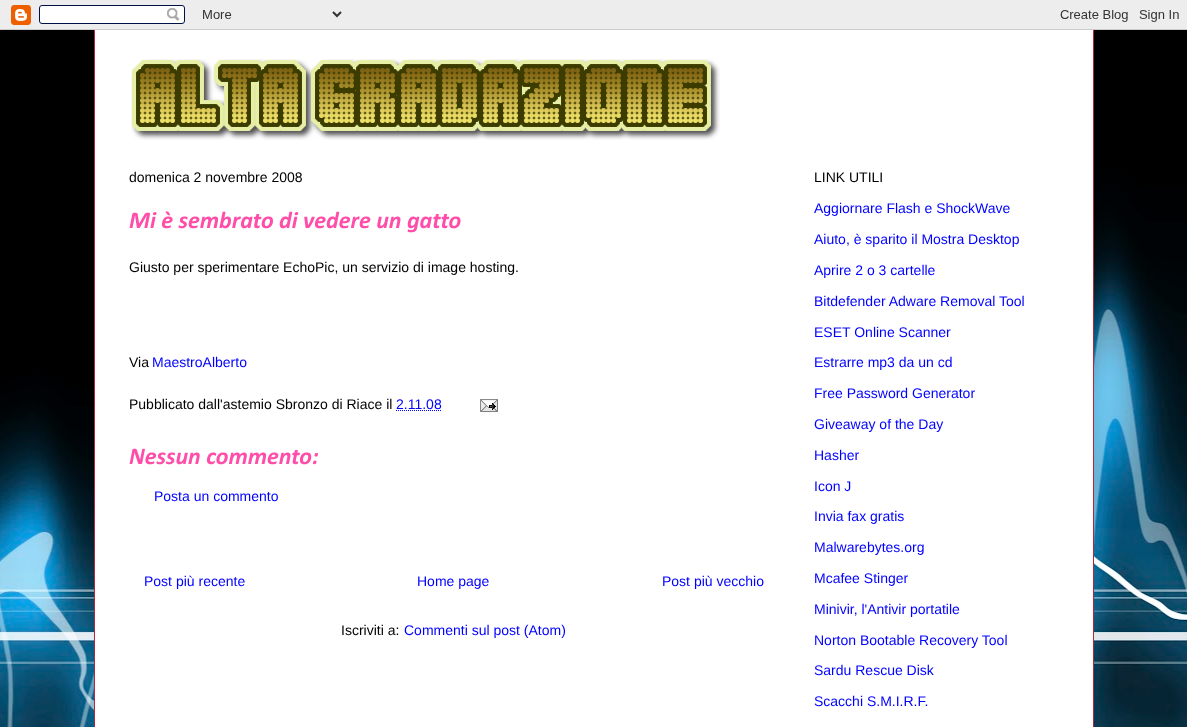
<?xml version="1.0" encoding="UTF-8"?>
<svg xmlns="http://www.w3.org/2000/svg" xmlns:xlink="http://www.w3.org/1999/xlink" width="1187" height="727">
  <rect width="100%" height="100%" fill="#000000" />
  <image x="0" y="103" width="1187" height="624" xlink:href="image1.png" />
  <image x="0" y="0" width="1187" height="30" xlink:href="image2.png" />
  <rect x="95" y="30" width="998" height="697" fill="#ffffff" />
  <rect x="1093" y="30" width="1" height="697" fill="#b3273c" />
  <rect x="94" y="30" width="1" height="697" fill="#b3273c" />
  <image x="131" y="59" width="589" height="81" xlink:href="image3.png" />
  <path d="M 396 410.5 h 45.5" fill="none" stroke="#0000ff" stroke-dasharray="1 1" />
  <image x="480" y="399" width="18" height="13" xlink:href="image4.png" />
  <text x="129" y="182" style="font-family: Liberation Sans; font-size: 14px; fill: #000000">domenica 2 novembre 2008</text>
  <text x="129" y="228" style="font-family: Calibri; font-size: 24px; font-weight: bold; font-style: italic; fill: #ff4ea9">Mi è sembrato di vedere un gatto</text>
  <text x="129" y="272" style="font-family: Liberation Sans; font-size: 14px; fill: #000000">Giusto per sperimentare EchoPic, un servizio di image hosting.</text>
  <text x="129" y="367" style="font-family: Liberation Sans; font-size: 14px; fill: #000000">Via</text>
  <text x="152" y="367" style="font-family: Liberation Sans; font-size: 14px; fill: #0000ff">MaestroAlberto</text>
  <text x="129" y="409" style="font-family: Liberation Sans; font-size: 14px; fill: #000000">Pubblicato dall'astemio Sbronzo di Riace il</text>
  <text x="396" y="409" style="font-family: Liberation Sans; font-size: 14px; fill: #0000ff">2.11.08</text>
  <text x="129" y="464" style="font-family: Calibri; font-size: 24px; font-weight: bold; font-style: italic; fill: #ff4ea9">Nessun commento:</text>
  <text x="154" y="501" style="font-family: Liberation Sans; font-size: 14px; fill: #0000ff">Posta un commento</text>
  <text x="144" y="586" style="font-family: Liberation Sans; font-size: 14px; fill: #0000ff">Post più recente</text>
  <text x="417" y="586" style="font-family: Liberation Sans; font-size: 14px; fill: #0000ff">Home page</text>
  <text x="662" y="586" style="font-family: Liberation Sans; font-size: 14px; fill: #0000ff">Post più vecchio</text>
  <text x="341" y="635" style="font-family: Liberation Sans; font-size: 14px; fill: #000000">Iscriviti a:</text>
  <text x="404" y="635" style="font-family: Liberation Sans; font-size: 14px; fill: #0000ff">Commenti sul post (Atom)</text>
  <text x="814" y="182" style="font-family: Liberation Sans; font-size: 14px; fill: #000000">LINK UTILI</text>
  <text x="814" y="213" style="font-family: Liberation Sans; font-size: 14px; fill: #0000ff">Aggiornare Flash e ShockWave</text>
  <text x="814" y="244" style="font-family: Liberation Sans; font-size: 14px; fill: #0000ff">Aiuto, è sparito il Mostra Desktop</text>
  <text x="814" y="275" style="font-family: Liberation Sans; font-size: 14px; fill: #0000ff">Aprire 2 o 3 cartelle</text>
  <text x="814" y="306" style="font-family: Liberation Sans; font-size: 14px; fill: #0000ff">Bitdefender Adware Removal Tool</text>
  <text x="814" y="337" style="font-family: Liberation Sans; font-size: 14px; fill: #0000ff">ESET Online Scanner</text>
  <text x="814" y="367" style="font-family: Liberation Sans; font-size: 14px; fill: #0000ff">Estrarre mp3 da un cd</text>
  <text x="814" y="398" style="font-family: Liberation Sans; font-size: 14px; fill: #0000ff">Free Password Generator</text>
  <text x="814" y="429" style="font-family: Liberation Sans; font-size: 14px; fill: #0000ff">Giveaway of the Day</text>
  <text x="814" y="460" style="font-family: Liberation Sans; font-size: 14px; fill: #0000ff">Hasher</text>
  <text x="814" y="491" style="font-family: Liberation Sans; font-size: 14px; fill: #0000ff">Icon J</text>
  <text x="814" y="521" style="font-family: Liberation Sans; font-size: 14px; fill: #0000ff">Invia fax gratis</text>
  <text x="814" y="552" style="font-family: Liberation Sans; font-size: 14px; fill: #0000ff">Malwarebytes.org</text>
  <text x="814" y="583" style="font-family: Liberation Sans; font-size: 14px; fill: #0000ff">Mcafee Stinger</text>
  <text x="814" y="614" style="font-family: Liberation Sans; font-size: 14px; fill: #0000ff">Minivir, l'Antivir portatile</text>
  <text x="814" y="645" style="font-family: Liberation Sans; font-size: 14px; fill: #0000ff">Norton Bootable Recovery Tool</text>
  <text x="814" y="675" style="font-family: Liberation Sans; font-size: 14px; fill: #0000ff">Sardu Rescue Disk</text>
  <text x="814" y="706" style="font-family: Liberation Sans; font-size: 14px; fill: #0000ff">Scacchi S.M.I.R.F.</text>
</svg>
